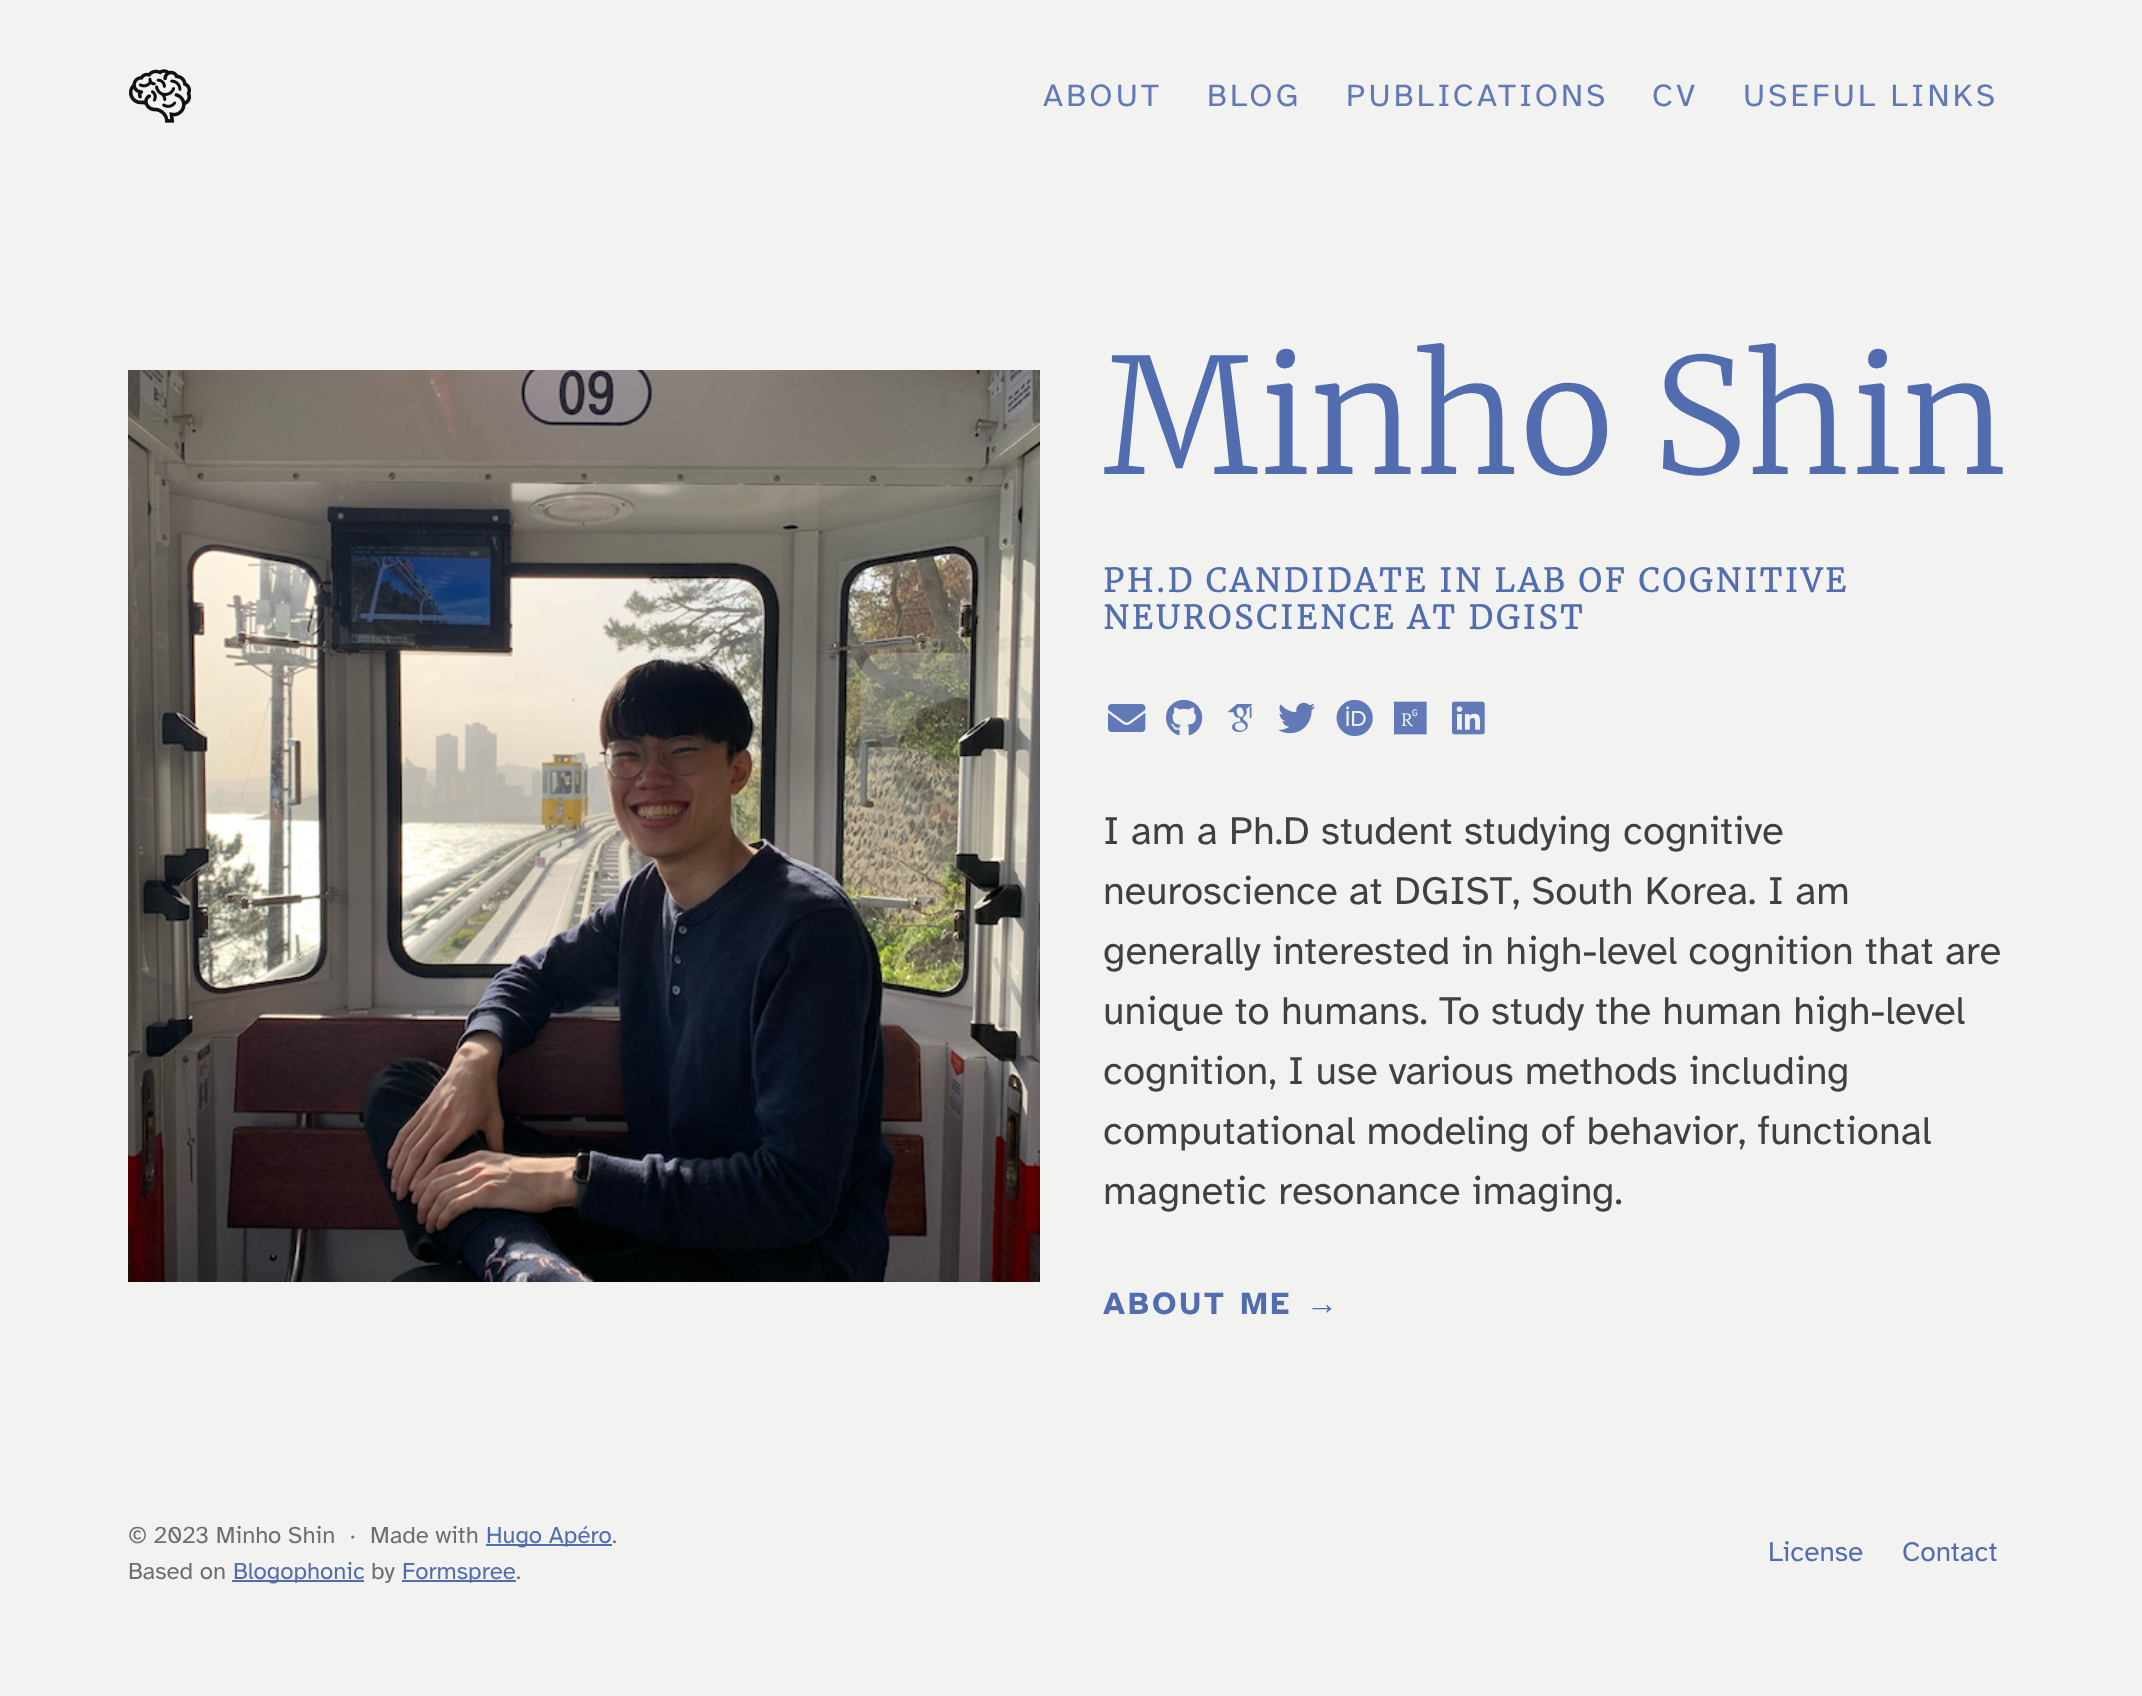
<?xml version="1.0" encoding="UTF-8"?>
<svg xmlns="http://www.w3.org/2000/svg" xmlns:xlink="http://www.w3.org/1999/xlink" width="2142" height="1696">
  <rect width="100%" height="100%" fill="#f2f2f1" />
  <image x="129" y="69" width="62" height="54" xlink:href="image1.png" />
  <image x="128" y="370" width="912" height="912" xlink:href="image2.png" />
  <image x="1108" y="704" width="38" height="28" xlink:href="image3.png" />
  <image x="1166" y="699" width="37" height="37" xlink:href="image4.png" />
  <image x="1227" y="704" width="26" height="28" xlink:href="image5.png" />
  <image x="1278" y="702" width="38" height="32" xlink:href="image6.png" />
  <image x="1336" y="699" width="37" height="38" xlink:href="image7.png" />
  <image x="1394" y="701" width="33" height="34" xlink:href="image8.png" />
  <image x="1452" y="701" width="33" height="34" xlink:href="image9.png" />
  <rect x="486" y="1544" width="126" height="2" fill="#516db0" />
  <rect x="232" y="1580" width="132" height="2" fill="#516db0" />
  <rect x="402" y="1580" width="114" height="2" fill="#516db0" />
  <text x="1043" y="106" style="font-family: Atkinson Hyperlegible; font-size: 32px; letter-spacing: 3.2px; fill: #617ab7">ABOUT</text>
  <text x="1207" y="106" style="font-family: Atkinson Hyperlegible; font-size: 32px; letter-spacing: 3.2px; fill: #617ab7">BLOG</text>
  <text x="1346" y="106" style="font-family: Atkinson Hyperlegible; font-size: 32px; letter-spacing: 3.2px; fill: #617ab7">PUBLICATIONS</text>
  <text x="1652" y="106" style="font-family: Atkinson Hyperlegible; font-size: 32px; letter-spacing: 3.2px; fill: #617ab7">CV</text>
  <text x="1743" y="106" style="font-family: Atkinson Hyperlegible; font-size: 32px; letter-spacing: 3.2px; fill: #617ab7">USEFUL LINKS</text>
  <text x="1103" y="474" style="font-family: Merriweather; font-size: 160px; font-weight: 300; fill: #516db0">Minho Shin</text>
  <text x="1103" y="592" style="font-family: Merriweather; font-size: 32px; font-weight: bold; letter-spacing: 3.2px; fill: #516db0">PH.D CANDIDATE IN LAB OF COGNITIVE</text>
  <text x="1103" y="629" style="font-family: Merriweather; font-size: 32px; font-weight: bold; letter-spacing: 3.2px; fill: #516db0">NEUROSCIENCE AT DGIST</text>
  <text x="1103" y="844" style="font-family: Atkinson Hyperlegible; font-size: 40px; fill: #404040">I am a Ph.D student studying cognitive</text>
  <text x="1103" y="904" style="font-family: Atkinson Hyperlegible; font-size: 40px; fill: #404040">neuroscience at DGIST, South Korea. I am</text>
  <text x="1103" y="964" style="font-family: Atkinson Hyperlegible; font-size: 40px; fill: #404040">generally interested in high-level cognition that are</text>
  <text x="1103" y="1024" style="font-family: Atkinson Hyperlegible; font-size: 40px; fill: #404040">unique to humans. To study the human high-level</text>
  <text x="1103" y="1084" style="font-family: Atkinson Hyperlegible; font-size: 40px; fill: #404040">cognition, I use various methods including</text>
  <text x="1103" y="1144" style="font-family: Atkinson Hyperlegible; font-size: 40px; fill: #404040">computational modeling of behavior, functional</text>
  <text x="1103" y="1204" style="font-family: Atkinson Hyperlegible; font-size: 40px; fill: #404040">magnetic resonance imaging.</text>
  <text x="1103" y="1314" style="font-family: Atkinson Hyperlegible; font-size: 32px; font-weight: bold; letter-spacing: 3.2px; fill: #516db0">ABOUT ME</text>
  <text x="1306" y="1314" style="font-family: Liberation Serif; font-size: 32px; font-weight: bold; letter-spacing: 3.2px; fill: #516db0">→</text>
  <text x="128" y="1543" style="font-family: Atkinson Hyperlegible; font-size: 24px; fill: #706e6c">© 2023 Minho Shin</text>
  <text x="350" y="1543" style="font-family: Atkinson Hyperlegible; font-size: 24px; fill: #516db0">·</text>
  <text x="370" y="1543" style="font-family: Atkinson Hyperlegible; font-size: 24px; fill: #706e6c">Made with</text>
  <text x="486" y="1543" style="font-family: Atkinson Hyperlegible; font-size: 24px; fill: #516db0">Hugo Apéro</text>
  <text x="612" y="1543" style="font-family: Atkinson Hyperlegible; font-size: 24px; fill: #706e6c">.</text>
  <text x="128" y="1579" style="font-family: Atkinson Hyperlegible; font-size: 24px; fill: #706e6c">Based on</text>
  <text x="233" y="1579" style="font-family: Atkinson Hyperlegible; font-size: 24px; fill: #516db0">Blogophonic</text>
  <text x="371" y="1579" style="font-family: Atkinson Hyperlegible; font-size: 24px; fill: #706e6c">by</text>
  <text x="402" y="1579" style="font-family: Atkinson Hyperlegible; font-size: 24px; fill: #516db0">Formspree</text>
  <text x="516" y="1579" style="font-family: Atkinson Hyperlegible; font-size: 24px; fill: #706e6c">.</text>
  <text x="1768" y="1561" style="font-family: Atkinson Hyperlegible; font-size: 28px; fill: #516db0">License</text>
  <text x="1902" y="1561" style="font-family: Atkinson Hyperlegible; font-size: 28px; fill: #516db0">Contact</text>
</svg>
